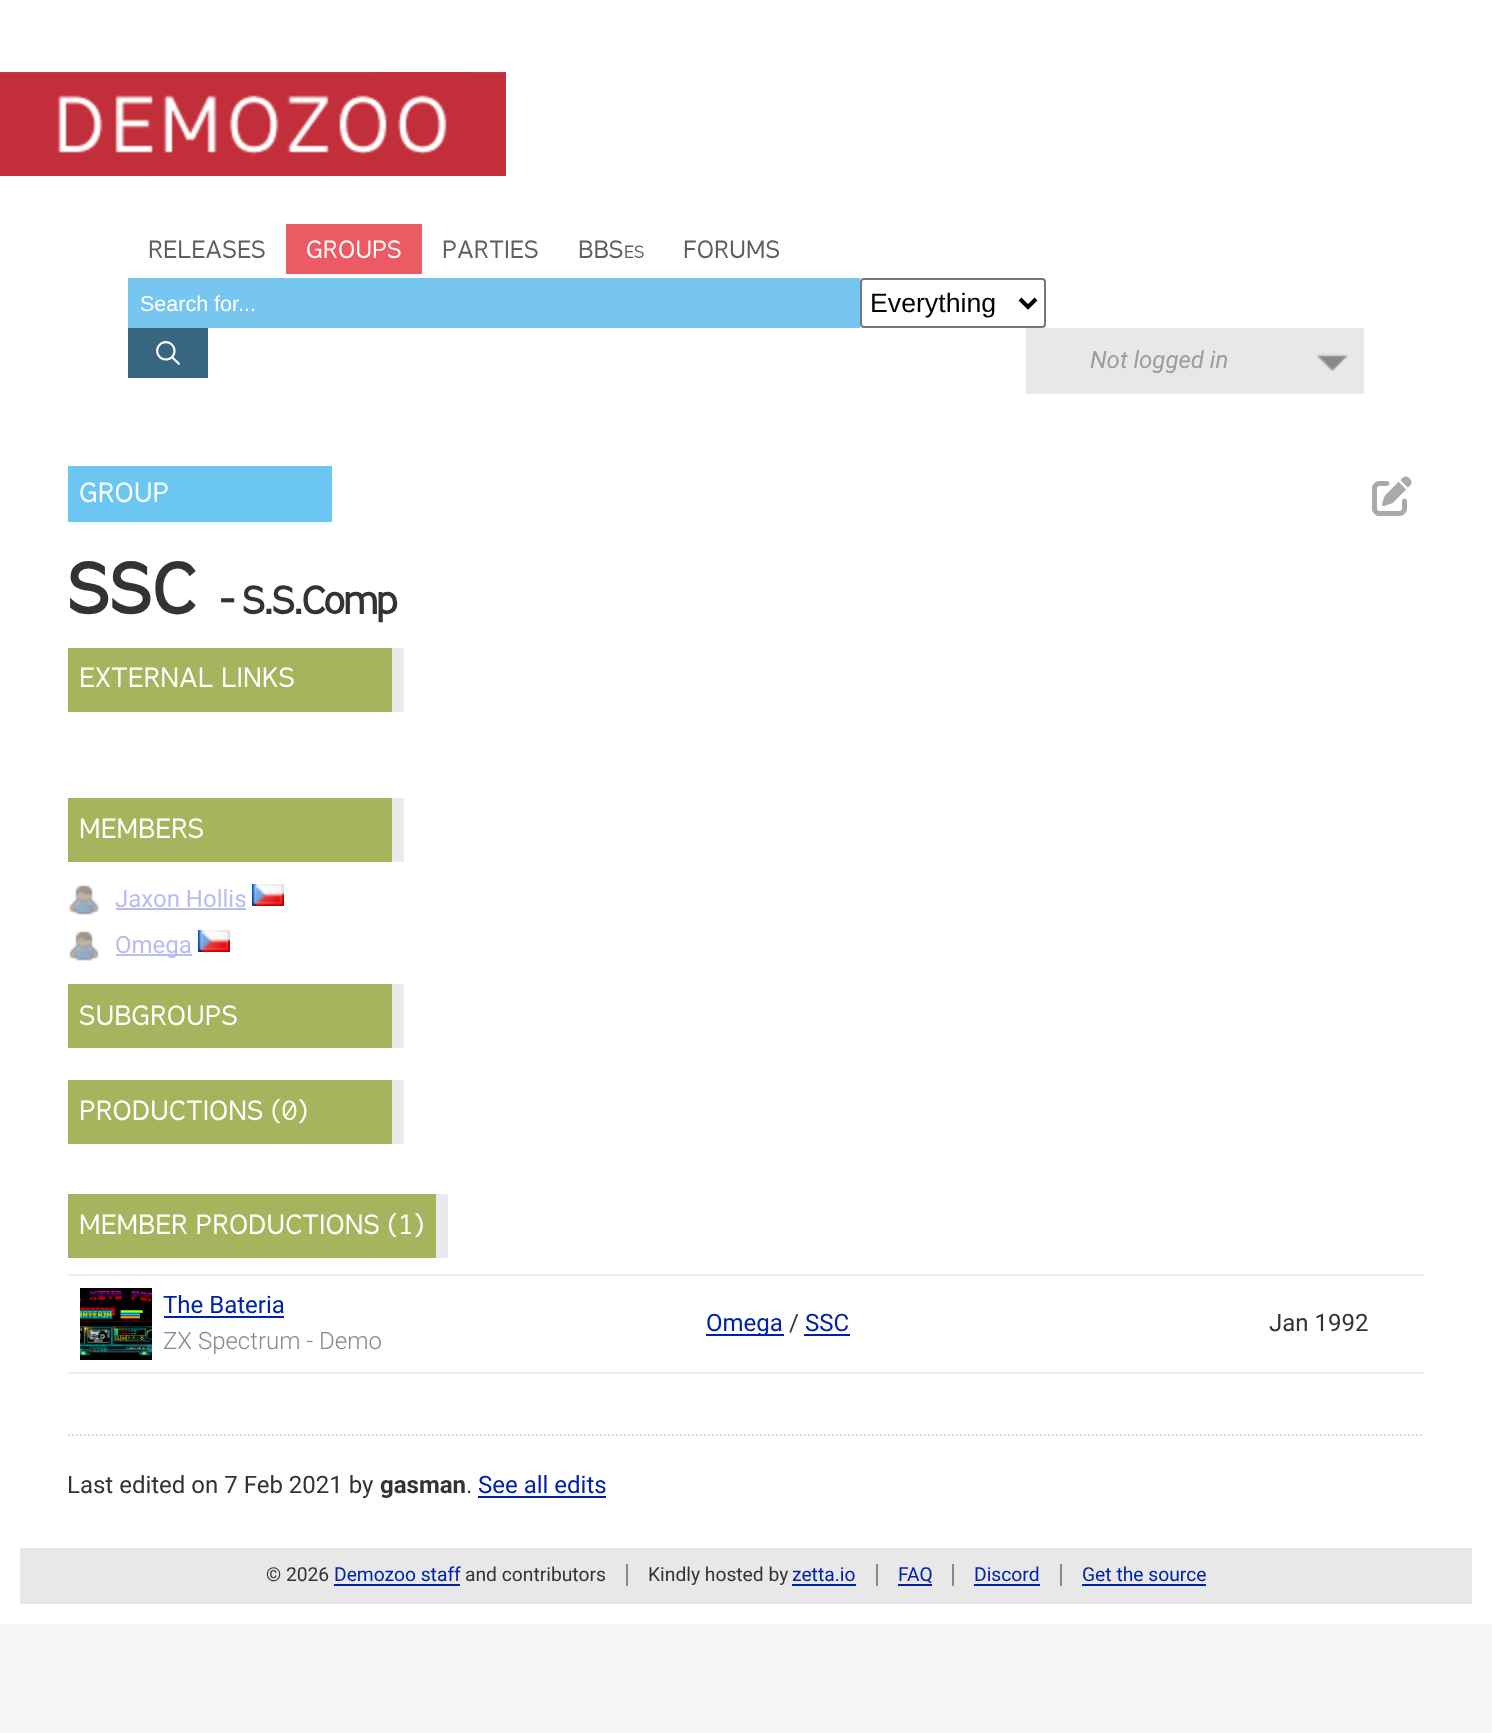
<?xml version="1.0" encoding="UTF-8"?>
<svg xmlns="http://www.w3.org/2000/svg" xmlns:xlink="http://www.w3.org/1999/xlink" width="1492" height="1733">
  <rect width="100%" height="100%" fill="#f5f5f5" />
  <rect width="1492" height="1528" fill="#ffffff" />
  <rect y="155" width="506" height="21" fill="#c32e3b" />
  <image x="0" y="72" width="506" height="83" xlink:href="image1.png" />
  <rect x="286" y="224" width="136" height="50" fill="#ec5a64" />
  <rect x="128" y="278" width="732" height="50" fill="#77c6ef" />
  <rect x="861" y="279" width="184" height="48" rx="3" fill="none" stroke="#767676" stroke-width="2" />
  <path d="M 1020 299 l 8 8 l 8 -8" fill="none" stroke="#000000" stroke-width="4" />
  <rect x="128" y="328" width="80" height="50" fill="#386580" />
  <image x="156" y="341" width="24" height="24" xlink:href="image2.png" />
  <rect x="1026" y="328" width="338" height="66" fill="#e8e8e8" />
  <image x="1317" y="353" width="31" height="18" xlink:href="image3.png" />
  <rect x="68" y="466" width="264" height="56" fill="#6bc7f1" />
  <image x="1372" y="476" width="40" height="40" xlink:href="image4.png" />
  <rect x="68" y="648" width="324" height="64" fill="#a5b45d" />
  <rect x="392" y="648" width="12" height="64" fill="#eaeaea" />
  <rect x="68" y="798" width="324" height="64" fill="#a5b45d" />
  <rect x="392" y="798" width="12" height="64" fill="#eaeaea" />
  <image x="69" y="885" width="30" height="30" xlink:href="image5.png" />
  <rect x="116" y="908" width="130" height="2" fill="#bbbbee" />
  <image x="252" y="884" width="32" height="22" xlink:href="image6.png" />
  <image x="69" y="931" width="30" height="30" xlink:href="image5.png" />
  <rect x="116" y="954" width="76" height="2" fill="#bbbbee" />
  <image x="198" y="930" width="32" height="22" xlink:href="image6.png" />
  <rect x="68" y="984" width="324" height="64" fill="#a5b45d" />
  <rect x="392" y="984" width="12" height="64" fill="#eaeaea" />
  <rect x="68" y="1080" width="324" height="64" fill="#a5b45d" />
  <rect x="392" y="1080" width="12" height="64" fill="#eaeaea" />
  <rect x="68" y="1194" width="368" height="64" fill="#a5b45d" />
  <rect x="436" y="1194" width="12" height="64" fill="#eaeaea" />
  <rect x="68" y="1274" width="1356" height="2" fill="#f0f0f0" />
  <rect x="68" y="1372" width="1356" height="2" fill="#f0f0f0" />
  <image x="80" y="1288" width="72" height="72" xlink:href="image7.png" />
  <rect x="164" y="1316" width="120" height="2" fill="#0022aa" />
  <rect x="706" y="1334" width="78" height="2" fill="#0022aa" />
  <rect x="804" y="1334" width="46" height="2" fill="#0022aa" />
  <path d="M 68 1435 h 1356" fill="none" stroke="#dddddd" stroke-width="2" stroke-dasharray="2 2" />
  <rect x="478" y="1496" width="128" height="2" fill="#0022aa" />
  <rect x="10" y="1538" width="1472" height="76" fill="#e8e8e8" stroke="#ffffff" stroke-width="20" />
  <rect x="334" y="1584" width="126" height="2" fill="#0022aa" />
  <rect x="626" y="1564" width="2" height="22" fill="#888888" />
  <rect x="792" y="1584" width="64" height="2" fill="#0022aa" />
  <rect x="876" y="1564" width="2" height="22" fill="#888888" />
  <rect x="898" y="1584" width="34" height="2" fill="#0022aa" />
  <rect x="952" y="1564" width="2" height="22" fill="#888888" />
  <rect x="974" y="1584" width="66" height="2" fill="#0022aa" />
  <rect x="1060" y="1564" width="2" height="22" fill="#888888" />
  <rect x="1082" y="1584" width="124" height="2" fill="#0022aa" />
  <text x="148" y="258" style="font-family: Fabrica; font-size: 24px; fill: #5e5f5f">RELEASES</text>
  <text x="306" y="258" style="font-family: Fabrica; font-size: 24px; fill: #ffffff">GROUPS</text>
  <text x="442" y="258" style="font-family: Fabrica; font-size: 24px; fill: #5e5f5f">PARTIES</text>
  <text x="578" y="258" style="font-family: Fabrica; font-size: 24px; fill: #5e5f5f">BBS</text>
  <text x="624" y="258" style="font-family: Fabrica; font-size: 17px; fill: #5e5f5f">ES</text>
  <text x="683" y="258" style="font-family: Fabrica; font-size: 24px; fill: #5e5f5f">FORUMS</text>
  <text x="140" y="311" style="font-family: Liberation Sans; font-size: 21.5px; fill: #ffffff">Search for...</text>
  <text x="870" y="312" style="font-family: Liberation Sans; font-size: 26.7px; fill: #000000">Everything</text>
  <text x="1090" y="368" style="font-family: Roboto; font-size: 24px; font-style: italic; fill: #9d9d9d">Not logged in</text>
  <text x="79" y="502" style="font-family: Fabrica; font-size: 26.7px; fill: #ffffff">GROUP</text>
  <text x="67" y="614" style="font-family: Fabrica; font-size: 69px; font-weight: bold; fill: #333333">SSC</text>
  <text x="219" y="614" style="font-family: Fabrica; font-size: 37.5px; font-weight: bold; letter-spacing: -2px; fill: #333333">- S.S.Comp</text>
  <text x="79" y="687" style="font-family: Fabrica; font-size: 26.7px; fill: #ffffff">EXTERNAL LINKS</text>
  <text x="79" y="838" style="font-family: Fabrica; font-size: 26.7px; fill: #ffffff">MEMBERS</text>
  <text x="115" y="907" style="font-family: Roboto; font-size: 24px; fill: #bbbbee">Jaxon Hollis</text>
  <text x="115" y="953" style="font-family: Roboto; font-size: 24px; fill: #bbbbee">Omega</text>
  <text x="79" y="1025" style="font-family: Fabrica; font-size: 26.7px; fill: #ffffff">SUBGROUPS</text>
  <text x="79" y="1120" style="font-family: Fabrica; font-size: 26.7px; fill: #ffffff">PRODUCTIONS (0)</text>
  <text x="79" y="1234" style="font-family: Fabrica; font-size: 26.7px; fill: #ffffff">MEMBER PRODUCTIONS (1)</text>
  <text x="163" y="1313" style="font-family: Roboto; font-size: 24px; fill: #0022aa">The Bateria</text>
  <text x="163" y="1349" style="font-family: Roboto; font-size: 24px; font-weight: 300; fill: #888888">ZX Spectrum - Demo</text>
  <text x="706" y="1331" style="font-family: Roboto; font-size: 24px; fill: #0022aa">Omega</text>
  <text x="789" y="1331" style="font-family: Roboto; font-size: 24px; fill: #333333">/</text>
  <text x="805" y="1331" style="font-family: Roboto; font-size: 24px; fill: #0022aa">SSC</text>
  <text x="1269" y="1331" style="font-family: Roboto; font-size: 24px; fill: #333333">Jan 1992</text>
  <text x="67" y="1493" style="font-family: Roboto; font-size: 24px; fill: #333333">Last edited on 7 Feb 2021 by</text>
  <text x="380" y="1493" style="font-family: Roboto; font-size: 24px; font-weight: bold; fill: #333333">gasman</text>
  <text x="466" y="1493" style="font-family: Roboto; font-size: 24px; fill: #333333">.</text>
  <text x="478" y="1493" style="font-family: Roboto; font-size: 24px; fill: #0022aa">See all edits</text>
  <text x="266" y="1581" style="font-family: Roboto; font-size: 19.25px; fill: #333333">© 2026</text>
  <text x="334" y="1581" style="font-family: Roboto; font-size: 19.25px; fill: #0022aa">Demozoo staff</text>
  <text x="465" y="1581" style="font-family: Roboto; font-size: 19.25px; fill: #333333">and contributors</text>
  <text x="648" y="1581" style="font-family: Roboto; font-size: 19.25px; fill: #333333">Kindly hosted by</text>
  <text x="792" y="1581" style="font-family: Roboto; font-size: 19.25px; fill: #0022aa">zetta.io</text>
  <text x="898" y="1581" style="font-family: Roboto; font-size: 19.25px; fill: #0022aa">FAQ</text>
  <text x="974" y="1581" style="font-family: Roboto; font-size: 19.25px; fill: #0022aa">Discord</text>
  <text x="1082" y="1581" style="font-family: Roboto; font-size: 19.25px; fill: #0022aa">Get the source</text>
</svg>
